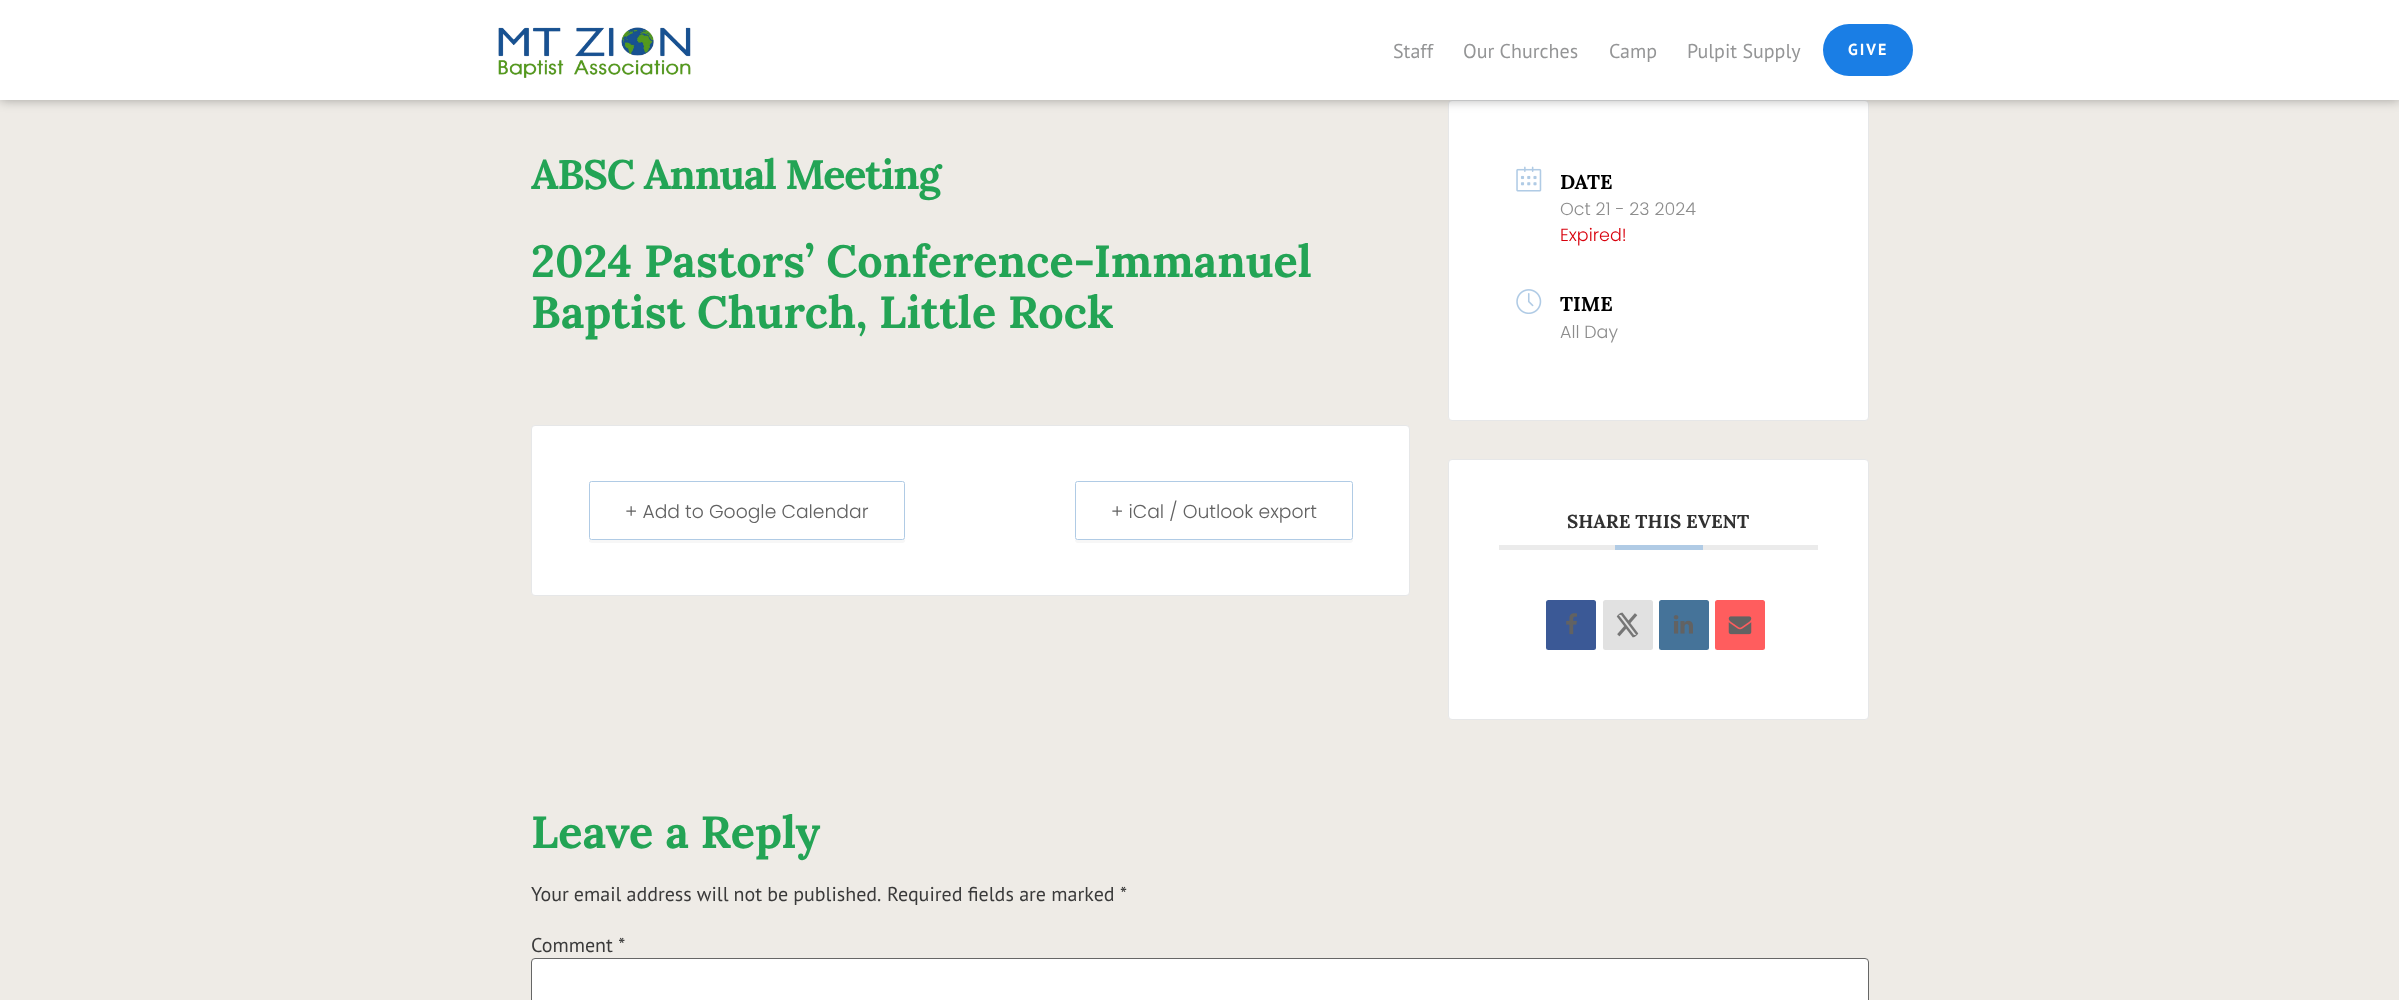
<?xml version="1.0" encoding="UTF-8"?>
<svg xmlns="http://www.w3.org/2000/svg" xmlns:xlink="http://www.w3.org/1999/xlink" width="2399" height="1000">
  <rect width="100%" height="100%" fill="#eeebe6" />
  <rect x="1448.5" y="100.5" width="420" height="320" rx="3.5" fill="#ffffff" stroke="#e6e7e8" />
  <rect width="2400" height="100" fill="#000000" fill-opacity="0.32" filter="blur(6px)" />
  <rect width="2399" height="100" fill="#ffffff" />
  <image x="498" y="27" width="193" height="51" xlink:href="image1.png" />
  <rect x="1823" y="24" width="90" height="52" rx="26" fill="#1a7ee5" />
  <rect x="531.5" y="425.5" width="878" height="170" rx="3.5" fill="#ffffff" stroke="#e6e7e8" />
  <path d="M 589 539 v 3 l 3 1 h 311 c 3 -1 2 -4 2 -5 c 0 1 -1 2 -3 2 h -311 c -1 0 -2 -1 -2 -1 z" fill="#f7f7f7" />
  <rect x="589.5" y="481.5" width="315" height="58" rx="2" fill="none" stroke="#b0cbe5" />
  <path d="M 1075 538 v 2 c 0 2 1 3 3 3 h 272 c 2 0 3 -1 3 -3 v -54 l -1 -1 v 53 c 0 1 -1 2 -2 2 h -272 c -2 0 -3 -1 -3 -2 z" fill="#f7f7f7" />
  <rect x="1075.5" y="481.5" width="277" height="58" rx="2" fill="#ffffff" stroke="#b0cbe5" />
  <image x="1516" y="166" width="26" height="26" xlink:href="image2.png" />
  <image x="1516" y="289" width="26" height="25" xlink:href="image3.png" />
  <rect x="1448.5" y="459.5" width="420" height="260" rx="3.5" fill="#ffffff" stroke="#e6e7e8" />
  <rect x="1499" y="545" width="319" height="5" fill="#ebebeb" />
  <rect x="1615" y="545" width="88" height="5" fill="#b0cbe5" />
  <rect x="1546" y="600" width="50" height="50" rx="2.5" fill="#3b5996" />
  <image x="1566" y="613" width="11" height="22" xlink:href="image4.png" />
  <rect x="1603" y="600" width="50" height="50" rx="2.5" fill="#e1e1e1" />
  <image x="1616" y="612" width="23" height="26" xlink:href="image5.png" />
  <rect x="1659" y="600" width="50" height="50" rx="2.5" fill="#457399" />
  <image x="1673" y="615" width="20" height="19" xlink:href="image6.png" />
  <rect x="1715" y="600" width="50" height="50" rx="2.5" fill="#ff5d5e" />
  <image x="1728" y="616" width="24" height="19" xlink:href="image7.png" />
  <rect x="531.5" y="958.5" width="1337" height="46" rx="3.5" fill="#ffffff" stroke="#666666" />
  <text x="1393" y="58" style="font-family: PT Sans; font-size: 20px; fill: #949596">Staff</text>
  <text x="1463" y="58" style="font-family: PT Sans; font-size: 20px; fill: #949596">Our Churches</text>
  <text x="1609" y="58" style="font-family: PT Sans; font-size: 20px; fill: #949596">Camp</text>
  <text x="1687" y="58" style="font-family: PT Sans; font-size: 20px; fill: #949596">Pulpit Supply</text>
  <text x="1848" y="55" style="font-family: PT Sans; font-size: 16px; font-weight: bold; letter-spacing: 2px; fill: #ffffff">GIVE</text>
  <text x="531" y="189" style="font-family: Lora; font-size: 41.25px; font-weight: bold; letter-spacing: -1.25px; fill: #23a455">ABSC Annual Meeting</text>
  <text x="531" y="277" style="font-family: Lora; font-size: 45px; font-weight: bold; fill: #23a455">2024 Pastors’ Conference-Immanuel</text>
  <text x="531" y="328" style="font-family: Lora; font-size: 45px; font-weight: bold; fill: #23a455">Baptist Church, Little Rock</text>
  <text x="625" y="518" style="font-family: Poppins; font-size: 18.75px; font-weight: 300; fill: #626262">+ Add to Google Calendar</text>
  <text x="1111" y="518" style="font-family: Poppins; font-size: 18.75px; font-weight: 300; fill: #626262">+ iCal / Outlook export</text>
  <text x="1560" y="189" style="font-family: Lora; font-size: 20px; font-weight: bold; fill: #000000">DATE</text>
  <text x="1560" y="215" style="font-family: Poppins; font-size: 17.5px; font-weight: 300; fill: #8d8d8d">Oct 21 - 23 2024</text>
  <text x="1560" y="241" style="font-family: Poppins; font-size: 17.5px; font-weight: 300; fill: #d8000c">Expired!</text>
  <text x="1560" y="311" style="font-family: Lora; font-size: 20px; font-weight: bold; fill: #000000">TIME</text>
  <text x="1560" y="338" style="font-family: Poppins; font-size: 17.5px; font-weight: 300; fill: #8d8d8d">All Day</text>
  <text x="1567" y="528" style="font-family: Lora; font-size: 18.75px; font-weight: bold; fill: #313131">SHARE THIS EVENT</text>
  <text x="531" y="848" style="font-family: Lora; font-size: 45px; font-weight: bold; fill: #23a455">Leave a Reply</text>
  <text x="531" y="901" word-spacing="-0.25" style="font-family: PT Sans; font-size: 20px; fill: #3a3a3a">Your email address will not be published.</text>
  <text x="887" y="901" style="font-family: PT Sans; font-size: 20px; fill: #3a3a3a">Required fields are marked *</text>
  <text x="531" y="952" style="font-family: PT Sans; font-size: 20px; fill: #3a3a3a">Comment *</text>
</svg>
